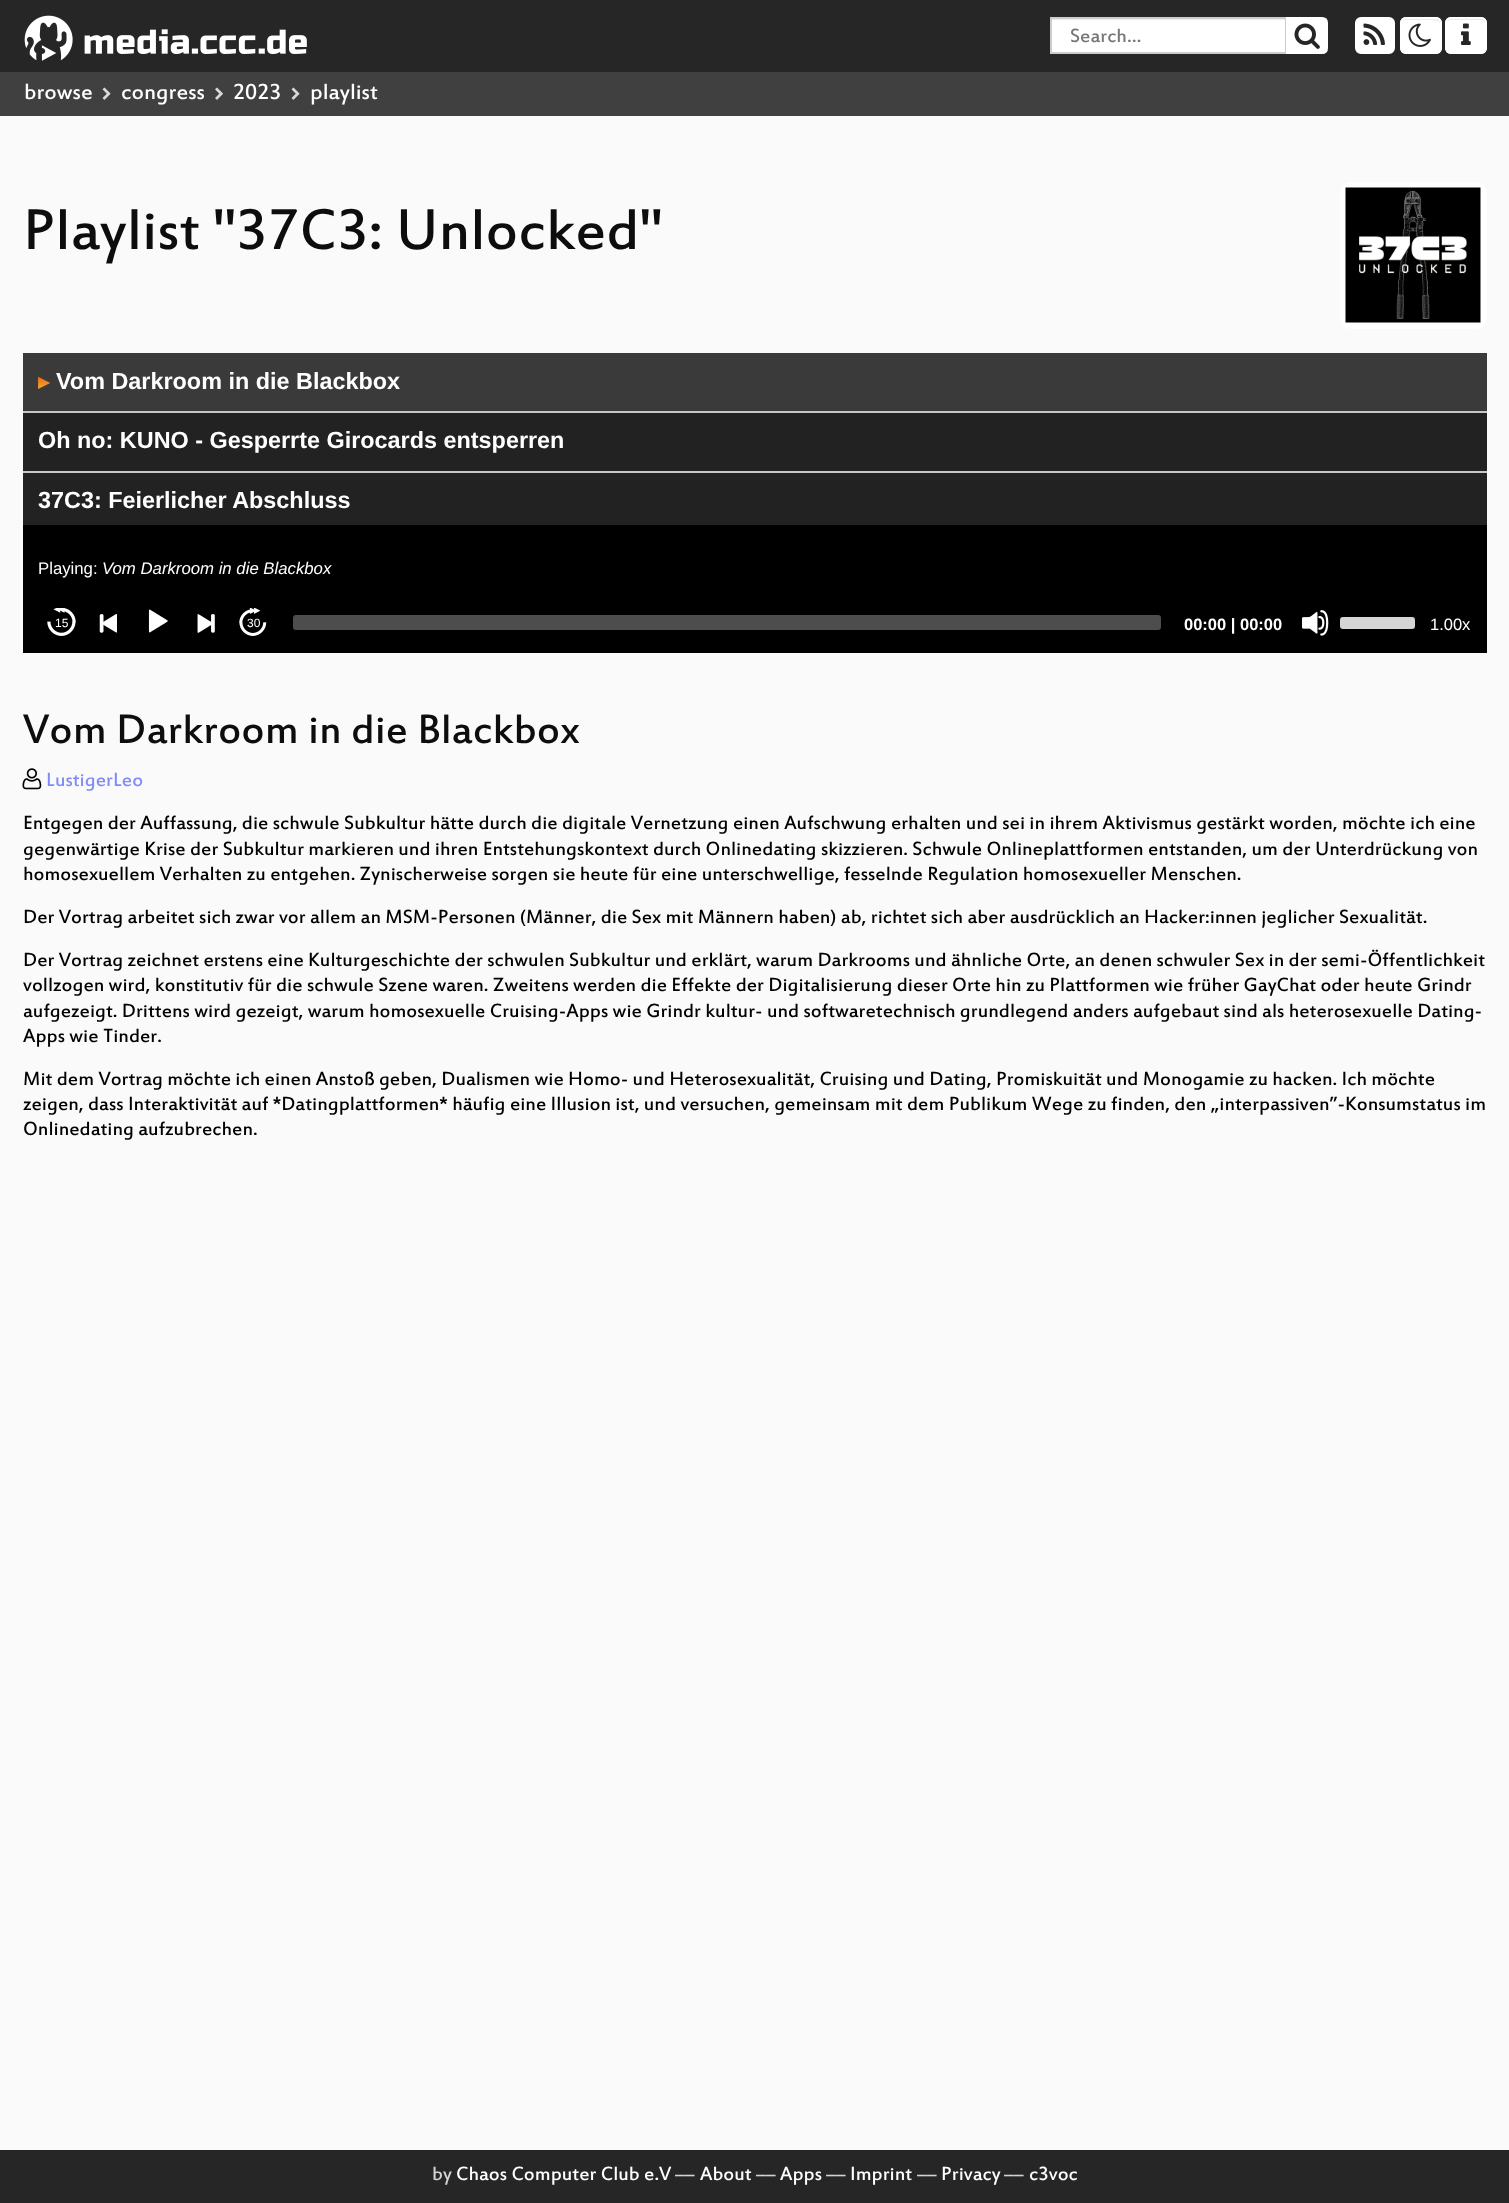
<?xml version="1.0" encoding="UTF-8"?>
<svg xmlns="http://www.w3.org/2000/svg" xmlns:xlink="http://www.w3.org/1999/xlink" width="1509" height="2203">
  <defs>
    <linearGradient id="g1" gradientUnits="userSpaceOnUse" x1="43" y1="373" x2="43" y2="390"><stop offset="0" stop-color="#eb5802" /><stop offset="1" stop-color="#f3ad39" /></linearGradient>
  </defs>
  <rect width="100%" height="100%" fill="#fafafa" />
  <rect width="1509" height="72" fill="#262626" />
  <image x="24" y="15" width="283" height="46" xlink:href="image1.png" />
  <rect x="1052" y="20" width="233" height="32" fill="#ffffff" />
  <rect x="1052" y="19" width="234" height="1" fill="#ececec" />
  <rect x="1051" y="18" width="235" height="35" fill="none" stroke="#cccccc" stroke-width="2" />
  <path d="M 1287 18 h 35 c 3 0 5 2 5 5 v 25 c 0 3 -2 5 -5 5 h -35 z" fill="#ffffff" stroke="#ffffff" stroke-width="2" />
  <image x="1294" y="23" width="26" height="26" xlink:href="image2.png" />
  <rect x="1356" y="18" width="38" height="35" rx="5" fill="#ffffff" stroke="#ffffff" stroke-width="2" />
  <image x="1363" y="23" width="22" height="22" xlink:href="image3.png" />
  <rect x="1400" y="17" width="42" height="37" rx="6" fill="#ffffff" />
  <path d="M 1406 20 h 24 c 7.5 0 9.5 1 10 4 v -1 c 0 -3 -2 -5 -5 -5 h -29 c -3 0 -5 2 -5 5 v 5 c 0 -3 0 -8 5 -8 z m -5 29 v -4 z" fill="#ececec" fill-rule="evenodd" />
  <rect x="1401" y="18" width="40" height="35" rx="5" fill="none" stroke="#ffffff" stroke-width="2" />
  <image x="1408" y="23" width="23" height="24" xlink:href="image4.png" />
  <rect x="1445" y="17" width="42" height="37" rx="6" fill="#ffffff" />
  <path d="M 1450 20 h 26 c 6.5 0 8.5 0.5 9 3.5 v -0.5 c 0 -3 -2 -5 -5 -5 h -29 c -3 0 -5 2 -5 5 v 5 c 0 -3 0 -8 4 -8 z m -4 29.5 v -4.5 z" fill="#ececec" fill-rule="evenodd" />
  <rect x="1446" y="18" width="40" height="35" rx="5" fill="none" stroke="#ffffff" stroke-width="2" />
  <image x="1461" y="23" width="10" height="22" xlink:href="image5.png" />
  <rect y="72" width="1509" height="44" fill="#404040" />
  <image x="102" y="87" width="9" height="13" xlink:href="image6.png" />
  <image x="215" y="87" width="8" height="13" xlink:href="image7.png" />
  <image x="291" y="87" width="9" height="13" xlink:href="image6.png" />
  <rect x="1340" y="182" width="147" height="147" rx="11" fill="#ffffff" />
  <image x="1345" y="187" width="136" height="136" xlink:href="image8.png" />
  <rect x="23" y="525" width="1464" height="128" fill="#000000" />
  <rect x="23" y="413" width="1464" height="112" fill="#222222" />
  <rect x="23" y="353" width="1464" height="58" fill="#3a3a3a" />
  <rect x="23" y="411" width="1464" height="2" fill="#c8c8c8" />
  <rect x="23" y="471" width="1464" height="2" fill="#c8c8c8" />
  <image x="47" y="608" width="29" height="28" xlink:href="image9.png" />
  <image x="99" y="614" width="18" height="19" xlink:href="image10.png" />
  <image x="148" y="609" width="20" height="24" xlink:href="image11.png" />
  <image x="197" y="614" width="18" height="19" xlink:href="image12.png" />
  <image x="239" y="608" width="28" height="28" xlink:href="image13.png" />
  <rect x="293" y="615" width="868" height="15" rx="3" fill="#4d4d4d" />
  <image x="1302" y="610" width="27" height="26" xlink:href="image14.png" />
  <rect x="1340" y="617" width="75" height="12" rx="3" fill="#282828" />
  <rect x="1340" y="617" width="75" height="12" rx="3" fill="#ffffff" fill-opacity="0.8" />
  <image x="22" y="768" width="20" height="22" xlink:href="image15.png" />
  <rect y="2150" width="1509" height="53" fill="#262626" />
  <text x="1070" y="42" style="font-family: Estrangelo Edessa; font-size: 21px; fill: #777777">Search…</text>
  <text x="24" y="99" style="font-family: Estrangelo Edessa; font-size: 24px; fill: #ffffff">browse</text>
  <text x="121" y="99" style="font-family: Estrangelo Edessa; font-size: 24px; fill: #ffffff">congress</text>
  <text x="233" y="99" style="font-family: Estrangelo Edessa; font-size: 24px; fill: #ffffff">2023</text>
  <text x="310" y="99" style="font-family: Estrangelo Edessa; font-size: 24px; fill: #ffffff">playlist</text>
  <text x="23" y="249" style="font-family: Estrangelo Edessa; font-size: 63px; fill: #0d0d0d">Playlist "37C3: Unlocked"</text>
  <text x="38" y="387" style="font-family: DejaVu Sans; font-size: 15px; font-weight: bold; fill: url(#g1)">▶</text>
  <text x="56" y="389" style="font-family: Liberation Sans; font-size: 23.4px; font-weight: bold; fill: #ffffff">Vom Darkroom in die Blackbox</text>
  <text x="38" y="448" style="font-family: Liberation Sans; font-size: 23.4px; font-weight: bold; fill: #ffffff">Oh no: KUNO - Gesperrte Girocards entsperren</text>
  <text x="38" y="508" style="font-family: Liberation Sans; font-size: 23.4px; font-weight: bold; fill: #ffffff">37C3: Feierlicher Abschluss</text>
  <text x="38" y="574" style="font-family: Liberation Sans; font-size: 16.75px; fill: #ffffff">Playing:</text>
  <text x="102" y="574" style="font-family: Liberation Sans; font-size: 16.75px; font-style: italic; fill: #ffffff">Vom Darkroom in die Blackbox</text>
  <text x="55" y="627" style="font-family: Liberation Sans; font-size: 12px; fill: #ffffff">15</text>
  <text x="247" y="627" style="font-family: Liberation Sans; font-size: 12px; fill: #ffffff">30</text>
  <text x="1184" y="630" style="font-family: Liberation Sans; font-size: 16.5px; font-weight: bold; fill: #ffffff">00:00 | 00:00</text>
  <text x="1430" y="630" style="font-family: Liberation Sans; font-size: 16.5px; fill: #ffffff">1.00x</text>
  <text x="23" y="743" style="font-family: Estrangelo Edessa; font-size: 45px; fill: #0d0d0d">Vom Darkroom in die Blackbox</text>
  <text x="46" y="786" style="font-family: Estrangelo Edessa; font-size: 21px; fill: #818cf8">LustigerLeo</text>
  <text x="23" y="829" style="font-family: Estrangelo Edessa; font-size: 21px; fill: #000000">Entgegen der Auffassung, die schwule Subkultur hätte durch die digitale Vernetzung einen Aufschwung erhalten und sei in ihrem Aktivismus gestärkt worden, möchte ich eine</text>
  <text x="23" y="855" style="font-family: Estrangelo Edessa; font-size: 21px; fill: #000000">gegenwärtige Krise der Subkultur markieren und ihren Entstehungskontext durch Onlinedating skizzieren. Schwule Onlineplattformen entstanden, um der Unterdrückung von</text>
  <text x="23" y="880" style="font-family: Estrangelo Edessa; font-size: 21px; fill: #000000">homosexuellem Verhalten zu entgehen. Zynischerweise sorgen sie heute für eine unterschwellige, fesselnde Regulation homosexueller Menschen.</text>
  <text x="23" y="923" style="font-family: Estrangelo Edessa; font-size: 21px; fill: #000000">Der Vortrag arbeitet sich zwar vor allem an MSM-Personen (Männer, die Sex mit Männern haben) ab, richtet sich aber ausdrücklich an Hacker:innen jeglicher Sexualität.</text>
  <text x="23" y="966" style="font-family: Estrangelo Edessa; font-size: 21px; fill: #000000">Der Vortrag zeichnet erstens eine Kulturgeschichte der schwulen Subkultur und erklärt, warum Darkrooms und ähnliche Orte, an denen schwuler Sex in der semi-Öffentlichkeit</text>
  <text x="23" y="991" style="font-family: Estrangelo Edessa; font-size: 21px; fill: #000000">vollzogen wird, konstitutiv für die schwule Szene waren. Zweitens werden die Effekte der Digitalisierung dieser Orte hin zu Plattformen wie früher GayChat oder heute Grindr</text>
  <text x="23" y="1017" style="font-family: Estrangelo Edessa; font-size: 21px; fill: #000000">aufgezeigt. Drittens wird gezeigt, warum homosexuelle Cruising-Apps wie Grindr kultur- und softwaretechnisch grundlegend anders aufgebaut sind als heterosexuelle Dating-</text>
  <text x="23" y="1042" style="font-family: Estrangelo Edessa; font-size: 21px; fill: #000000">Apps wie Tinder.</text>
  <text x="23" y="1085" style="font-family: Estrangelo Edessa; font-size: 21px; fill: #000000">Mit dem Vortrag möchte ich einen Anstoß geben, Dualismen wie Homo- und Heterosexualität, Cruising und Dating, Promiskuität und Monogamie zu hacken. Ich möchte</text>
  <text x="23" y="1110" style="font-family: Estrangelo Edessa; font-size: 21px; fill: #000000">zeigen, dass Interaktivität auf *Datingplattformen* häufig eine Illusion ist, und versuchen, gemeinsam mit dem Publikum Wege zu finden, den „interpassiven”-Konsumstatus im</text>
  <text x="23" y="1135" style="font-family: Estrangelo Edessa; font-size: 21px; fill: #000000">Onlinedating aufzubrechen.</text>
  <text x="432" y="2180" style="font-family: Estrangelo Edessa; font-size: 21px; fill: #d4d4d4">by</text>
  <text x="456" y="2180" style="font-family: Estrangelo Edessa; font-size: 21px; fill: #ffffff">Chaos Computer Club e.V</text>
  <text x="675" y="2180" style="font-family: Estrangelo Edessa; font-size: 21px; fill: #d4d4d4">––</text>
  <text x="700" y="2180" style="font-family: Estrangelo Edessa; font-size: 21px; fill: #ffffff">About</text>
  <text x="756" y="2180" style="font-family: Estrangelo Edessa; font-size: 21px; fill: #d4d4d4">––</text>
  <text x="780" y="2180" style="font-family: Estrangelo Edessa; font-size: 21px; fill: #ffffff">Apps</text>
  <text x="826" y="2180" style="font-family: Estrangelo Edessa; font-size: 21px; fill: #d4d4d4">––</text>
  <text x="850" y="2180" style="font-family: Estrangelo Edessa; font-size: 21px; fill: #ffffff">Imprint</text>
  <text x="917" y="2180" style="font-family: Estrangelo Edessa; font-size: 21px; fill: #d4d4d4">––</text>
  <text x="941" y="2180" style="font-family: Estrangelo Edessa; font-size: 21px; fill: #ffffff">Privacy</text>
  <text x="1004" y="2180" style="font-family: Estrangelo Edessa; font-size: 21px; fill: #d4d4d4">––</text>
  <text x="1029" y="2180" style="font-family: Estrangelo Edessa; font-size: 21px; fill: #ffffff">c3voc</text>
</svg>
